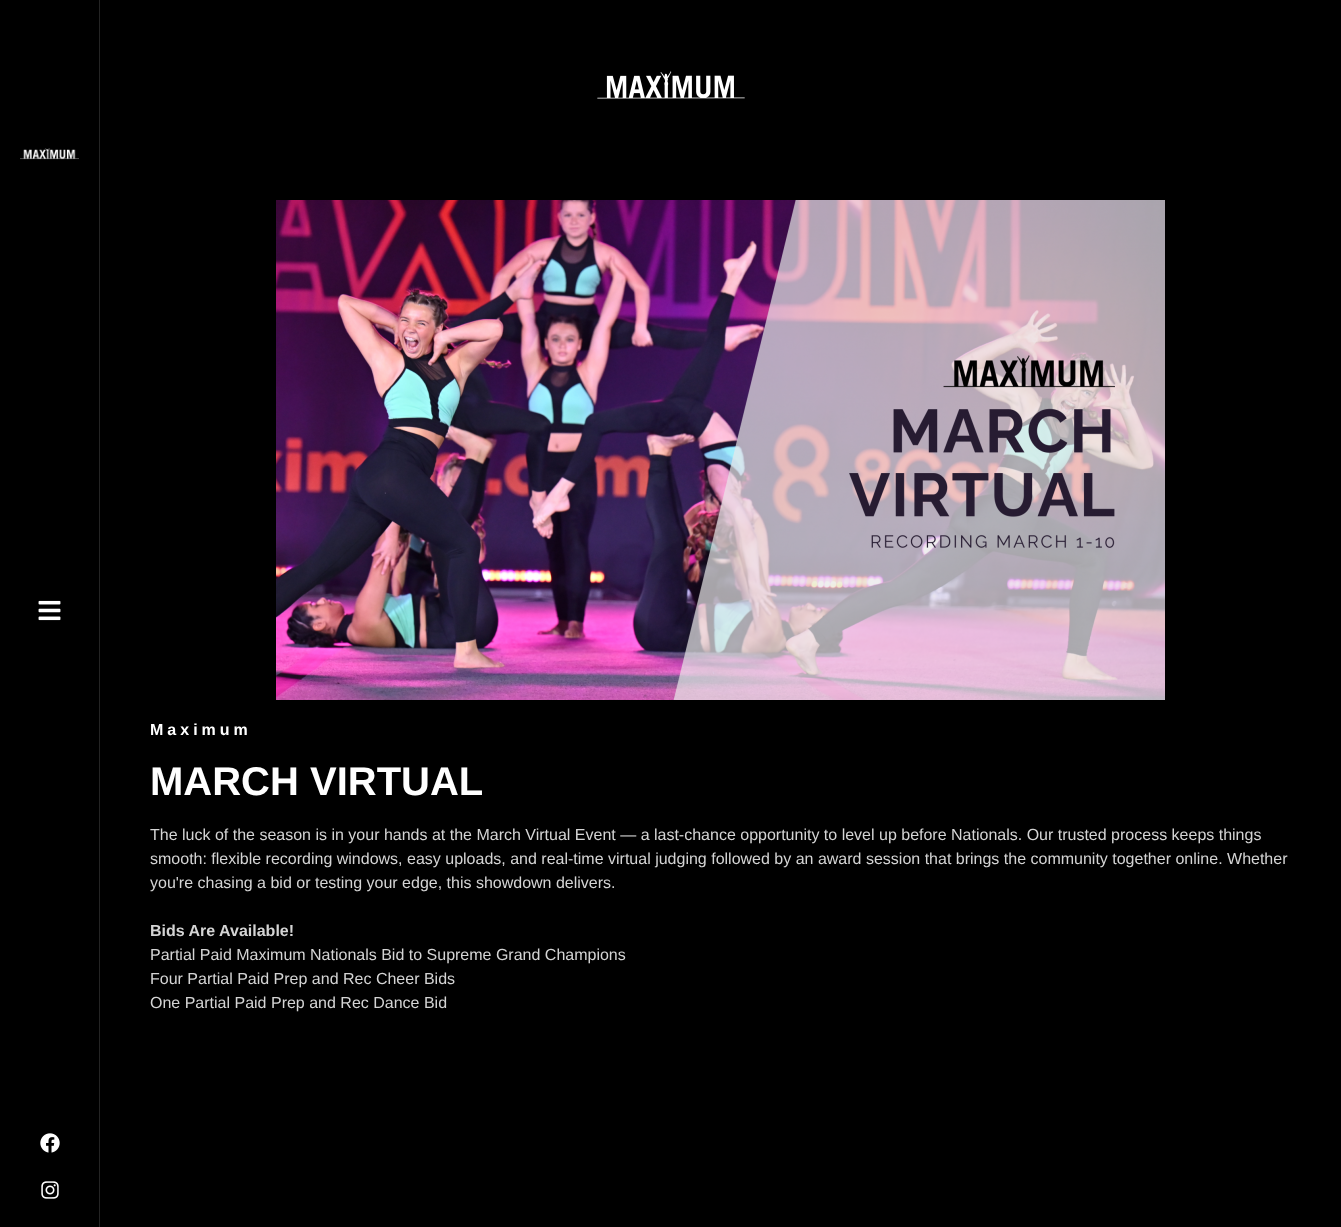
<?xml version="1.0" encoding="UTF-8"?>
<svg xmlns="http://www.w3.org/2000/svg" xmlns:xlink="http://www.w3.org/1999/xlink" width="1341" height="1227">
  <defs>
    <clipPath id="clip1"><rect x="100" y="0" width="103" height="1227" /></clipPath>
  </defs>
  <rect width="100%" height="100%" fill="#000000" />
  <g clip-path="url(#clip1)">
    <rect width="100" height="1227" fill="#000000" filter="blur(50px)" />
  </g>
  <rect x="99" width="1" height="1227" fill="#242424" />
  <image x="20" y="148" width="59" height="12" xlink:href="image1.png" />
  <image x="38" y="600" width="23" height="21" xlink:href="image2.png" />
  <image x="40" y="1133" width="20" height="20" xlink:href="image3.png" />
  <image x="41" y="1181" width="18" height="18" xlink:href="image4.png" />
  <image x="597" y="71" width="148" height="28" xlink:href="image5.png" />
  <image x="276" y="200" width="889" height="500" xlink:href="image6.png" />
  <text x="150" y="735" style="font-family: Liberation Sans; font-size: 16px; font-weight: bold; letter-spacing: 4px; fill: #ffffff">Maximum</text>
  <text x="150" y="795" style="font-family: Liberation Sans; font-size: 40px; font-weight: bold; fill: #ffffff">MARCH VIRTUAL</text>
  <text x="150" y="840" style="font-family: Liberation Sans; font-size: 16px; fill: #d4d4d4">The luck of the season is in your hands at the March Virtual Event — a last-chance opportunity to level up before Nationals. Our trusted process keeps things</text>
  <text x="150" y="864" style="font-family: Liberation Sans; font-size: 16px; fill: #d4d4d4">smooth: flexible recording windows, easy uploads, and real-time virtual judging followed by an award session that brings the community together online. Whether</text>
  <text x="150" y="888" style="font-family: Liberation Sans; font-size: 16px; fill: #d4d4d4">you're chasing a bid or testing your edge, this showdown delivers.</text>
  <text x="150" y="936" style="font-family: Liberation Sans; font-size: 16px; font-weight: bold; fill: #d4d4d4">Bids Are Available!</text>
  <text x="150" y="960" style="font-family: Liberation Sans; font-size: 16px; fill: #d4d4d4">Partial Paid Maximum Nationals Bid to Supreme Grand Champions</text>
  <text x="150" y="984" style="font-family: Liberation Sans; font-size: 16px; fill: #d4d4d4">Four Partial Paid Prep and Rec Cheer Bids</text>
  <text x="150" y="1008" style="font-family: Liberation Sans; font-size: 16px; fill: #d4d4d4">One Partial Paid Prep and Rec Dance Bid</text>
</svg>
